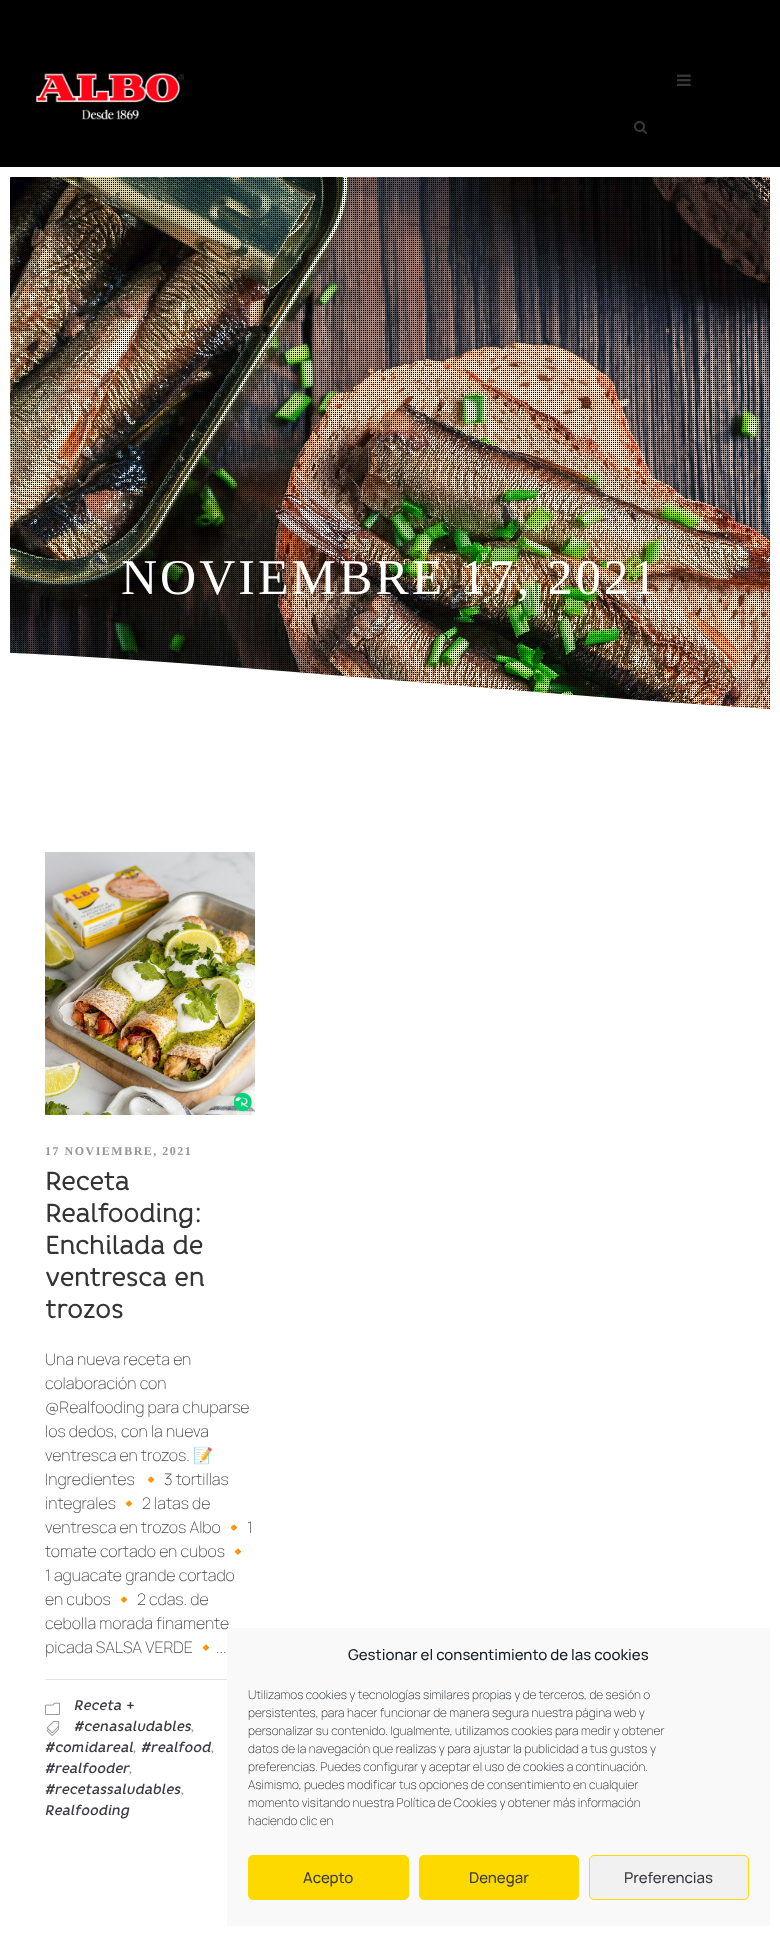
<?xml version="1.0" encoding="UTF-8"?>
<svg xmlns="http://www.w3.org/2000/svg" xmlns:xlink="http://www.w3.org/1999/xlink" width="780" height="1936">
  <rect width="100%" height="100%" fill="#ffffff" />
  <rect width="780" height="167" fill="#000000" />
  <image x="35" y="72" width="149" height="48" xlink:href="image1.png" />
  <image x="677" y="74" width="14" height="12" xlink:href="image2.png" />
  <image x="634" y="121" width="13" height="13" xlink:href="image3.png" />
  <image x="10" y="177" width="760" height="532" xlink:href="image4.png" />
  <image x="10" y="178" width="760" height="614" xlink:href="image5.png" />
  <image x="45" y="852" width="210" height="263" xlink:href="image6.png" />
  <rect x="45" y="1679" width="182" height="1" fill="#e2e2e2" />
  <image x="45" y="1702" width="15" height="13" xlink:href="image7.png" />
  <image x="46" y="1720" width="14" height="16" xlink:href="image8.png" />
  <text x="121" y="594" style="font-family: Liberation Serif; font-size: 50px; letter-spacing: 3px; fill: #ffffff">NOVIEMBRE 17, 2021</text>
  <text x="45" y="1155" style="font-family: Liberation Serif; font-size: 12px; font-weight: bold; letter-spacing: 1.5px; fill: #959595">17 NOVIEMBRE, 2021</text>
  <text x="45" y="1190" style="font-family: 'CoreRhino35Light'; font-size: 25px; font-weight: bold; fill: #343434">Receta</text>
  <text x="45" y="1222" style="font-family: 'CoreRhino35Light'; font-size: 25px; font-weight: bold; fill: #343434">Realfooding:</text>
  <text x="45" y="1254" style="font-family: 'CoreRhino35Light'; font-size: 25px; font-weight: bold; fill: #343434">Enchilada de</text>
  <text x="45" y="1286" style="font-family: 'CoreRhino35Light'; font-size: 25px; font-weight: bold; fill: #343434">ventresca en</text>
  <text x="45" y="1318" style="font-family: 'CoreRhino35Light'; font-size: 25px; font-weight: bold; fill: #343434">trozos</text>
  <text x="45" y="1365" style="font-family: Manrope; font-size: 16px; font-weight: 200; fill: #484848">Una nueva receta en</text>
  <text x="45" y="1389" style="font-family: Manrope; font-size: 16px; font-weight: 200; fill: #484848">colaboración con</text>
  <text x="45" y="1413" style="font-family: Manrope; font-size: 16px; font-weight: 200; fill: #484848">@Realfooding para chuparse</text>
  <text x="45" y="1437" style="font-family: Manrope; font-size: 16px; font-weight: 200; fill: #484848">los dedos, con la nueva</text>
  <text x="45" y="1461" style="font-family: Manrope; font-size: 16px; font-weight: 200; fill: #484848">ventresca en trozos.</text>
  <text x="193" y="1461" style="font-family: Noto Color Emoji; font-size: 16px; fill: #484848">📝</text>
  <text x="45" y="1485" style="font-family: Manrope; font-size: 16px; font-weight: 200; fill: #484848">Ingredientes</text>
  <text x="141" y="1485" style="font-family: Noto Color Emoji; font-size: 16px; fill: #484848">🔸</text>
  <text x="164" y="1485" style="font-family: Manrope; font-size: 16px; font-weight: 200; fill: #484848">3 tortillas</text>
  <text x="45" y="1509" style="font-family: Manrope; font-size: 16px; font-weight: 200; fill: #484848">integrales</text>
  <text x="119" y="1509" style="font-family: Noto Color Emoji; font-size: 16px; fill: #484848">🔸</text>
  <text x="142" y="1509" style="font-family: Manrope; font-size: 16px; font-weight: 200; fill: #484848">2 latas de</text>
  <text x="45" y="1533" style="font-family: Manrope; font-size: 16px; font-weight: 200; fill: #484848">ventresca en trozos Albo</text>
  <text x="224" y="1533" style="font-family: Noto Color Emoji; font-size: 16px; fill: #484848">🔸</text>
  <text x="247" y="1533" style="font-family: Manrope; font-size: 16px; font-weight: 200; fill: #484848">1</text>
  <text x="45" y="1557" style="font-family: Manrope; font-size: 16px; font-weight: 200; fill: #484848">tomate cortado en cubos</text>
  <text x="228" y="1557" style="font-family: Noto Color Emoji; font-size: 16px; fill: #484848">🔸</text>
  <text x="45" y="1581" style="font-family: Manrope; font-size: 16px; font-weight: 200; fill: #484848">1 aguacate grande cortado</text>
  <text x="45" y="1605" style="font-family: Manrope; font-size: 16px; font-weight: 200; fill: #484848">en cubos</text>
  <text x="114" y="1605" style="font-family: Noto Color Emoji; font-size: 16px; fill: #484848">🔸</text>
  <text x="137" y="1605" style="font-family: Manrope; font-size: 16px; font-weight: 200; fill: #484848">2 cdas. de</text>
  <text x="45" y="1629" style="font-family: Manrope; font-size: 16px; font-weight: 200; fill: #484848">cebolla morada finamente</text>
  <text x="45" y="1653" style="font-family: Manrope; font-size: 16px; font-weight: 200; fill: #484848">picada SALSA VERDE</text>
  <text x="196" y="1653" style="font-family: Noto Color Emoji; font-size: 16px; fill: #484848">🔸</text>
  <text x="216" y="1653" style="font-family: Manrope; font-size: 16px; font-weight: 200; fill: #484848">...</text>
  <text x="74" y="1710" style="font-family: 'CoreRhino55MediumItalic'; font-size: 14px; fill: #3b3c43">Receta +</text>
  <text x="74" y="1731" style="font-family: 'CoreRhino55MediumItalic'; font-size: 14px; fill: #3b3c43">#cenasaludables</text>
  <text x="191" y="1731" style="font-family: Liberation Serif; font-size: 11px; font-weight: bold; letter-spacing: 1px; fill: #959595">,</text>
  <text x="45" y="1752" style="font-family: 'CoreRhino55MediumItalic'; font-size: 14px; fill: #3b3c43">#comidareal</text>
  <text x="133" y="1752" style="font-family: Liberation Serif; font-size: 11px; font-weight: bold; letter-spacing: 1px; fill: #959595">,</text>
  <text x="141" y="1752" style="font-family: 'CoreRhino55MediumItalic'; font-size: 14px; fill: #3b3c43">#realfood</text>
  <text x="211" y="1752" style="font-family: Liberation Serif; font-size: 11px; font-weight: bold; letter-spacing: 1px; fill: #959595">,</text>
  <text x="45" y="1773" style="font-family: 'CoreRhino55MediumItalic'; font-size: 14px; fill: #3b3c43">#realfooder</text>
  <text x="129" y="1773" style="font-family: Liberation Serif; font-size: 11px; font-weight: bold; letter-spacing: 1px; fill: #959595">,</text>
  <text x="45" y="1794" style="font-family: 'CoreRhino55MediumItalic'; font-size: 14px; fill: #3b3c43">#recetassaludables</text>
  <text x="181" y="1794" style="font-family: Liberation Serif; font-size: 11px; font-weight: bold; letter-spacing: 1px; fill: #959595">,</text>
  <text x="45" y="1815" style="font-family: 'CoreRhino55MediumItalic'; font-size: 14px; fill: #3b3c43">Realfooding</text>
  <rect x="227" y="1628" width="543" height="298" fill="#f9f9f9" />
  <text x="348" y="1660" style="font-family: Manrope; font-size: 15px; font-weight: 500; fill: #191e23">Gestionar el consentimiento de las cookies</text>
  <text x="248" y="1699" style="font-family: Manrope; font-size: 12px; font-weight: 200; fill: #191e23">Utilizamos cookies y tecnologías similares propias y de terceros, de sesión o</text>
  <text x="248" y="1717" style="font-family: Manrope; font-size: 12px; font-weight: 200; fill: #191e23">persistentes, para hacer funcionar de manera segura nuestra página web y</text>
  <text x="248" y="1735" style="font-family: Manrope; font-size: 12px; font-weight: 200; fill: #191e23">personalizar su contenido. Igualmente, utilizamos cookies para medir y obtener</text>
  <text x="248" y="1753" style="font-family: Manrope; font-size: 12px; font-weight: 200; fill: #191e23">datos de la navegación que realizas y para ajustar la publicidad a tus gustos y</text>
  <text x="248" y="1771" style="font-family: Manrope; font-size: 12px; font-weight: 200; fill: #191e23">preferencias. Puedes configurar y aceptar el uso de cookies a continuación.</text>
  <text x="248" y="1789" style="font-family: Manrope; font-size: 12px; font-weight: 200; fill: #191e23">Asimismo, puedes modificar tus opciones de consentimiento en cualquier</text>
  <text x="248" y="1807" style="font-family: Manrope; font-size: 12px; font-weight: 200; fill: #191e23">momento visitando nuestra Política de Cookies y obtener más información</text>
  <text x="248" y="1825" style="font-family: Manrope; font-size: 12px; font-weight: 200; fill: #191e23">haciendo clic en</text>
  <rect x="248.5" y="1855.5" width="160" height="44" rx="4.5" fill="#fdd900" stroke="#fdd900" />
  <text x="303" y="1883" style="font-family: Manrope; font-size: 15px; font-weight: 500; fill: #3b3c43">Acepto</text>
  <rect x="419.5" y="1855.5" width="159" height="44" rx="4.5" fill="#fdd900" stroke="#fdd900" />
  <text x="469" y="1883" style="font-family: Manrope; font-size: 15px; font-weight: 500; fill: #3b3c43">Denegar</text>
  <rect x="589.5" y="1855.5" width="159" height="44" rx="4.5" fill="#f1f1f1" stroke="#fdd900" />
  <text x="624" y="1883" style="font-family: Manrope; font-size: 15px; font-weight: 500; fill: #3b3c43">Preferencias</text>
</svg>
